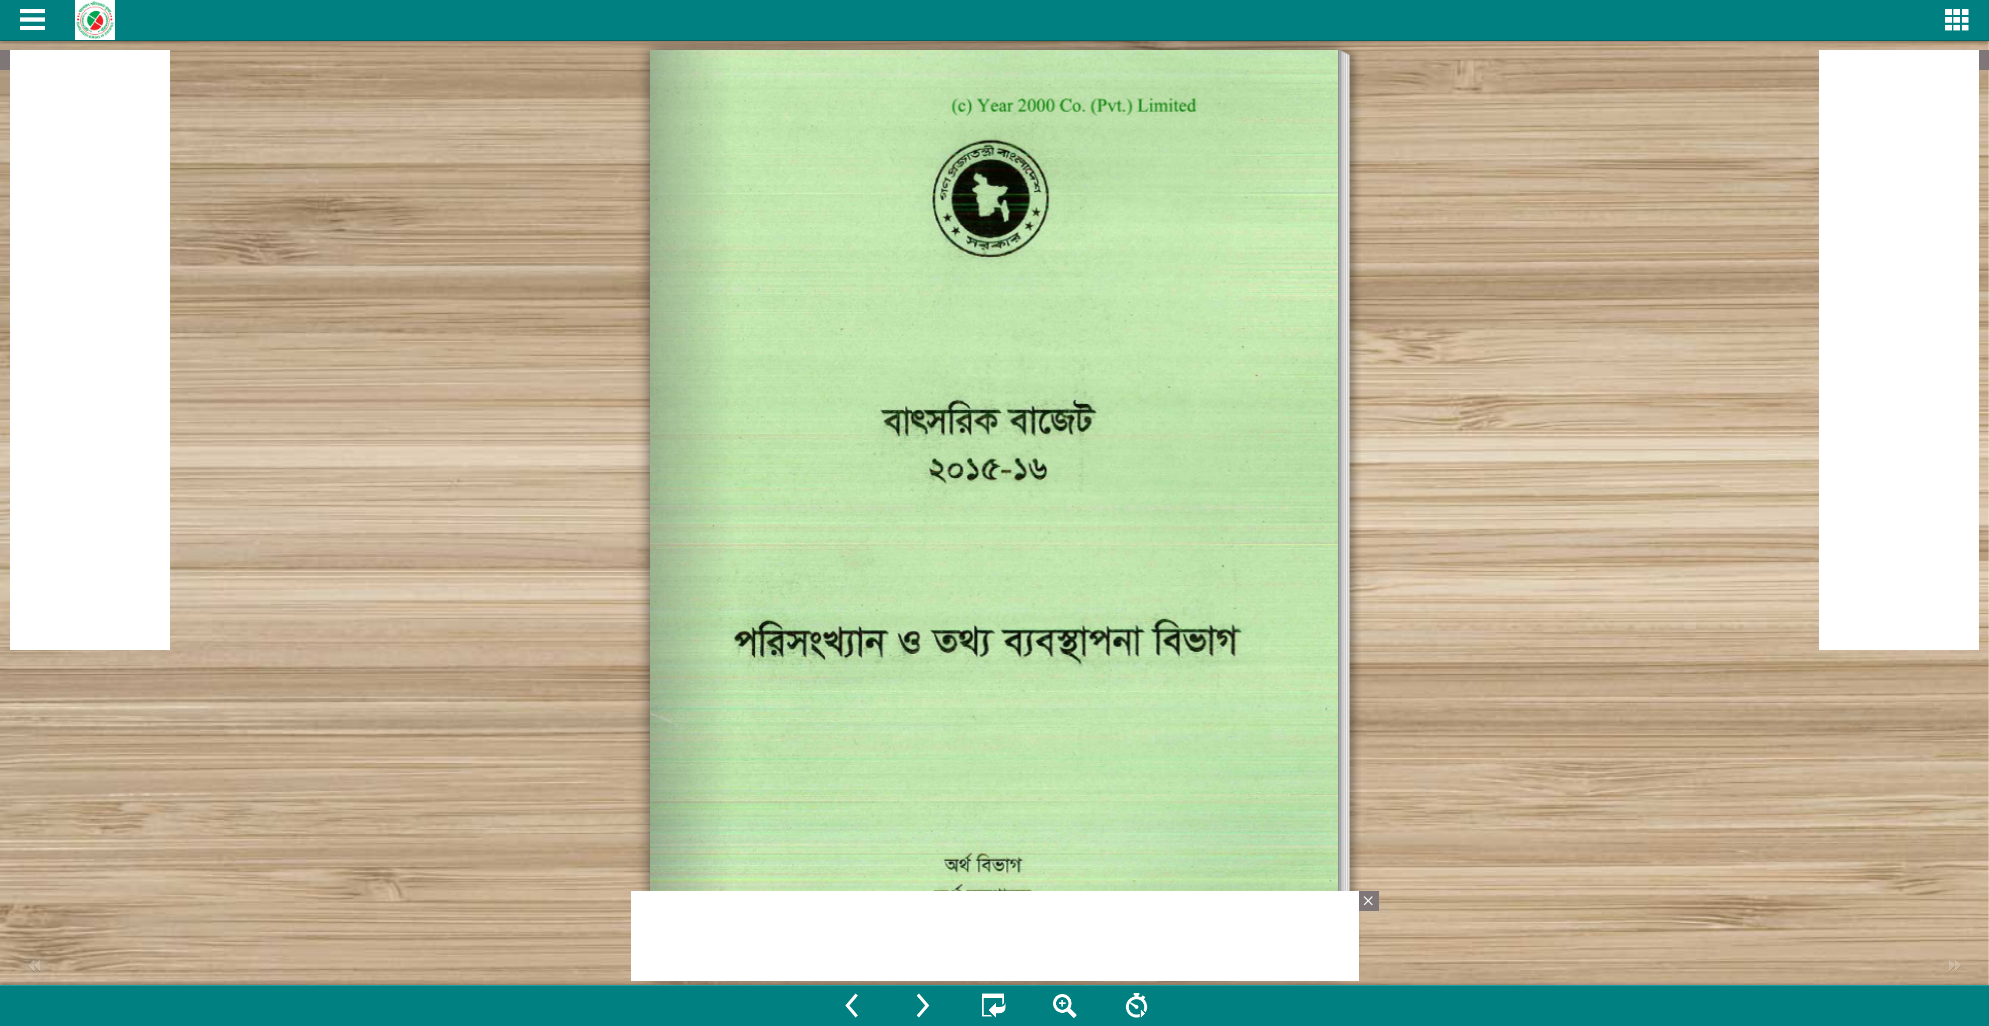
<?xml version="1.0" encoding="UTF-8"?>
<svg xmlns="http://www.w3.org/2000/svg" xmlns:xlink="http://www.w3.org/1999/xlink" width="1989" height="1026">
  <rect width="100%" height="100%" fill="#ffffff" />
  <image x="0" y="41" width="1989" height="944" xlink:href="image8.png" />
  <rect width="1989" height="41" fill="#280000" fill-opacity="0.5" filter="blur(2.5px)" />
  <rect x="650" y="50" width="689" height="926" fill="#282828" fill-opacity="0.7" filter="blur(7.5px)" />
  <rect width="1989" height="40" fill="#008080" />
  <rect y="40" width="1989" height="1" fill="#006262" />
  <image x="20" y="9" width="25" height="21" xlink:href="image1.png" />
  <image x="75" y="0" width="40" height="40" xlink:href="image2.png" />
  <image x="1945" y="9" width="24" height="22" xlink:href="image3.png" />
  <image x="650" y="50" width="688" height="841" xlink:href="image4.png" />
  <image x="1338" y="50" width="23" height="50" xlink:href="image5.png" />
  <image x="1338" y="100" width="23" height="826" xlink:href="image6.png" />
  <image x="1359" y="926" width="2" height="45" xlink:href="image7.png" />
  <image x="28" y="960" width="12" height="12" xlink:href="image9.png" />
  <image x="1949" y="960" width="12" height="12" xlink:href="image10.png" />
  <rect y="985" width="1989" height="41" fill="#280000" fill-opacity="0.5" filter="blur(2.5px)" />
  <rect y="986" width="1989" height="40" fill="#008080" />
  <rect y="985" width="1989" height="1" fill="#1e9e9e" />
  <image x="845" y="993" width="13" height="25" xlink:href="image11.png" />
  <image x="916" y="993" width="14" height="25" xlink:href="image12.png" />
  <image x="982" y="993" width="24" height="25" xlink:href="image13.png" />
  <image x="1053" y="994" width="24" height="24" xlink:href="image14.png" />
  <image x="1125" y="993" width="23" height="25" xlink:href="image15.png" />
  <rect x="10" y="50" width="160" height="600" fill="#ffffff" />
  <rect y="50" width="10" height="20" fill="#7f7777" />
  <rect x="1819" y="50" width="160" height="600" fill="#ffffff" />
  <rect x="1979" y="50" width="10" height="20" fill="#7f7777" />
  <rect x="631" y="891" width="728" height="90" fill="#ffffff" />
  <rect x="1359" y="891" width="20" height="20" fill="#7f7777" />
  <text x="1362" y="908" style="font-family: Liberation Serif; font-size: 22px; fill: #ffffff">×</text>
</svg>
